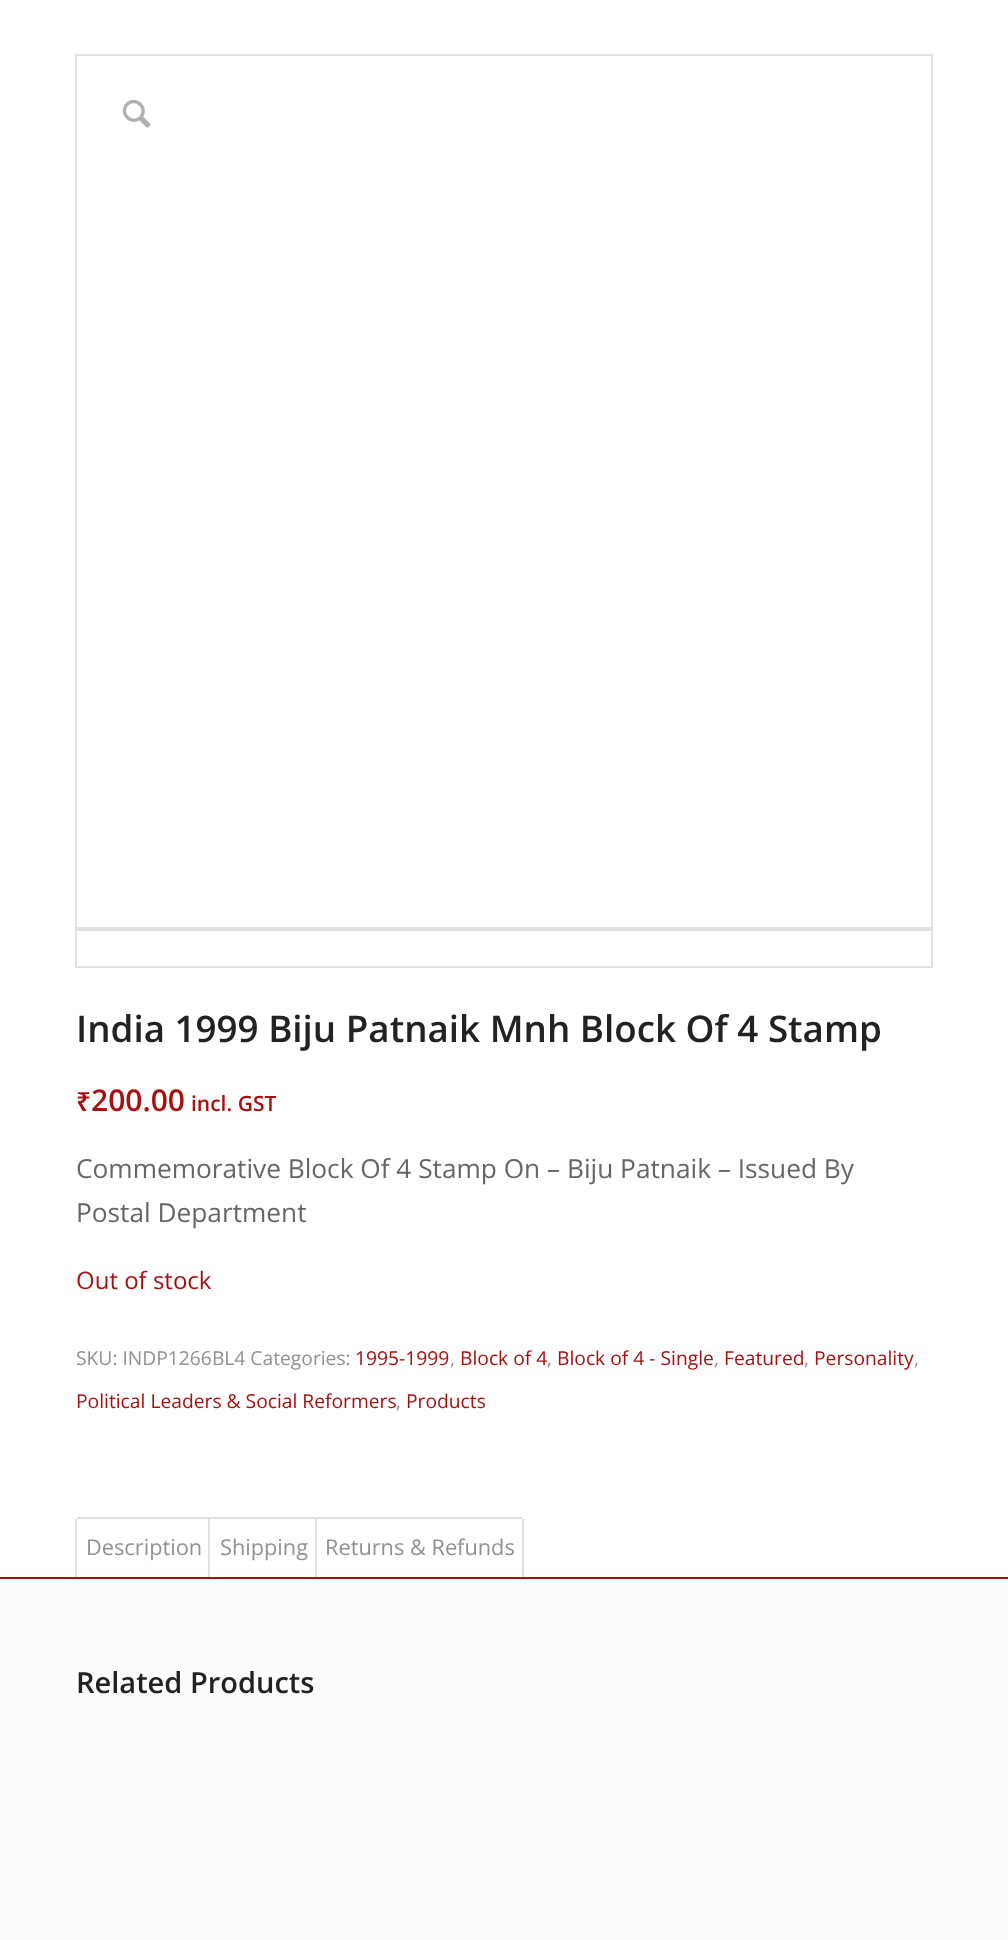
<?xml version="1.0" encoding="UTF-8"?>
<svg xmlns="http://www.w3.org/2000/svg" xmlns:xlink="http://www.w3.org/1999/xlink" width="1008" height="1940">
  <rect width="100%" height="100%" fill="#ffffff" />
  <rect x="76" y="55" width="856" height="873" fill="none" stroke="#e1e1e1" stroke-width="2" />
  <rect x="76" y="930" width="856" height="37" fill="none" stroke="#e1e1e1" stroke-width="2" />
  <image x="122" y="99" width="29" height="29" xlink:href="image1.png" />
  <rect x="77" y="1517" width="133" height="2" fill="#e1e1e1" />
  <rect x="208" y="1517" width="2" height="60" fill="#e1e1e1" />
  <rect x="75" y="1519" width="2" height="58" fill="#e1e1e1" />
  <rect x="208" y="1517" width="109" height="2" fill="#e1e1e1" />
  <rect x="315" y="1517" width="2" height="60" fill="#e1e1e1" />
  <rect x="315" y="1517" width="207" height="2" fill="#e1e1e1" />
  <rect x="522" y="1519" width="2" height="58" fill="#e1e1e1" />
  <rect y="1579" width="1008" height="361" fill="#fcfcfc" />
  <rect y="1577" width="1008" height="2" fill="#a81010" />
  <text x="76" y="1042" style="font-family: Open Sans; font-size: 36.75px; font-weight: 600; fill: #222222">India 1999 Biju Patnaik Mnh Block Of 4 Stamp</text>
  <text x="76" y="1111" style="font-family: Noto Sans; font-size: 26.25px; font-weight: 600; fill: #a81010">₹</text>
  <text x="91" y="1111" style="font-family: Open Sans; font-size: 30px; font-weight: 600; fill: #a81010">200.00</text>
  <text x="191" y="1111" style="font-family: Open Sans; font-size: 21px; font-weight: 600; fill: #a81010">incl. GST</text>
  <text x="76" y="1178" style="font-family: Open Sans; font-size: 26.25px; fill: #666666">Commemorative Block Of 4 Stamp On – Biju Patnaik – Issued By</text>
  <text x="76" y="1222" style="font-family: Open Sans; font-size: 26.25px; fill: #666666">Postal Department</text>
  <text x="76" y="1289" style="font-family: Open Sans; font-size: 24px; fill: #a81010">Out of stock</text>
  <text x="76" y="1365" style="font-family: Open Sans; font-size: 19.25px; fill: #919191">SKU: INDP1266BL4 Categories:</text>
  <text x="355" y="1365" style="font-family: Open Sans; font-size: 19.25px; fill: #a81010">1995-1999</text>
  <text x="450" y="1365" style="font-family: Open Sans; font-size: 19.25px; fill: #919191">,</text>
  <text x="460" y="1365" style="font-family: Open Sans; font-size: 19.25px; fill: #a81010">Block of 4</text>
  <text x="547" y="1365" style="font-family: Open Sans; font-size: 19.25px; fill: #919191">,</text>
  <text x="557" y="1365" style="font-family: Open Sans; font-size: 19.25px; fill: #a81010">Block of 4 - Single</text>
  <text x="714" y="1365" style="font-family: Open Sans; font-size: 19.25px; fill: #919191">,</text>
  <text x="724" y="1365" style="font-family: Open Sans; font-size: 19.25px; fill: #a81010">Featured</text>
  <text x="804" y="1365" style="font-family: Open Sans; font-size: 19.25px; fill: #919191">,</text>
  <text x="814" y="1365" style="font-family: Open Sans; font-size: 19.25px; fill: #a81010">Personality</text>
  <text x="914" y="1365" style="font-family: Open Sans; font-size: 19.25px; fill: #919191">,</text>
  <text x="76" y="1408" style="font-family: Open Sans; font-size: 19.25px; fill: #a81010">Political Leaders &amp; Social Reformers</text>
  <text x="396" y="1408" style="font-family: Open Sans; font-size: 19.25px; fill: #919191">,</text>
  <text x="406" y="1408" style="font-family: Open Sans; font-size: 19.25px; fill: #a81010">Products</text>
  <text x="86" y="1555" style="font-family: Open Sans; font-size: 21.75px; fill: #919191">Description</text>
  <text x="220" y="1555" style="font-family: Open Sans; font-size: 21.75px; fill: #919191">Shipping</text>
  <text x="325" y="1555" style="font-family: Open Sans; font-size: 21.75px; fill: #919191">Returns &amp; Refunds</text>
  <text x="76" y="1693" style="font-family: Open Sans; font-size: 29px; font-weight: 600; fill: #222222">Related Products</text>
</svg>
